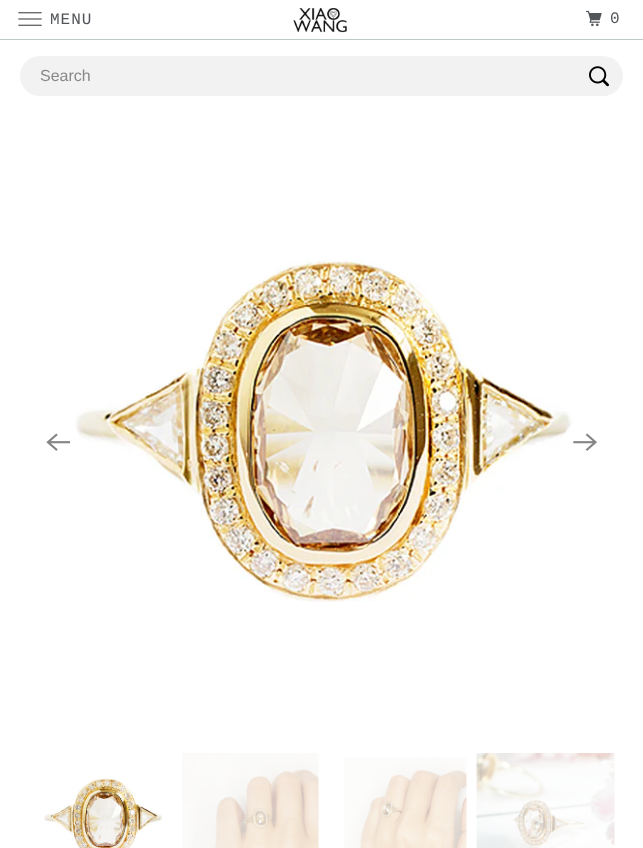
<?xml version="1.0" encoding="UTF-8"?>
<svg xmlns="http://www.w3.org/2000/svg" xmlns:xlink="http://www.w3.org/1999/xlink" width="643" height="848">
  <rect width="100%" height="100%" fill="#ffffff" />
  <rect y="39" width="643" height="1" fill="#bcc9c9" />
  <image x="18" y="12" width="24" height="14" xlink:href="image1.png" />
  <image x="293" y="8" width="54" height="25" xlink:href="image2.png" />
  <image x="586" y="10" width="16" height="17" xlink:href="image3.png" />
  <rect x="20" y="56" width="603" height="40" rx="20" fill="#f2f2f2" />
  <image x="589" y="66" width="20" height="21" xlink:href="image4.png" />
  <image x="75" y="260" width="497" height="342" xlink:href="image6.png" />
  <circle cx="58" cy="442" r="22" fill="#ffffff" fill-opacity="0.75" />
  <image x="46" y="433" width="25" height="18" xlink:href="image5.png" />
  <circle cx="585" cy="442" r="22" fill="#ffffff" fill-opacity="0.75" />
  <image x="573" y="433" width="24" height="18" xlink:href="image7.png" />
  <image x="44" y="778" width="119" height="70" xlink:href="image8.png" />
  <image x="182" y="753" width="137" height="95" xlink:href="image9.png" />
  <image x="344" y="757" width="123" height="91" xlink:href="image10.png" />
  <image x="476" y="753" width="139" height="95" xlink:href="image11.png" />
  <text x="50" y="24" style="font-family: Liberation Mono; font-size: 16px; letter-spacing: 1px; fill: #525559">MENU</text>
  <text x="610" y="23" style="font-family: Liberation Mono; font-size: 16px; letter-spacing: 1px; fill: #525559">0</text>
  <text x="40" y="81" style="font-family: Liberation Sans; font-size: 16px; fill: #888888">Search</text>
</svg>
